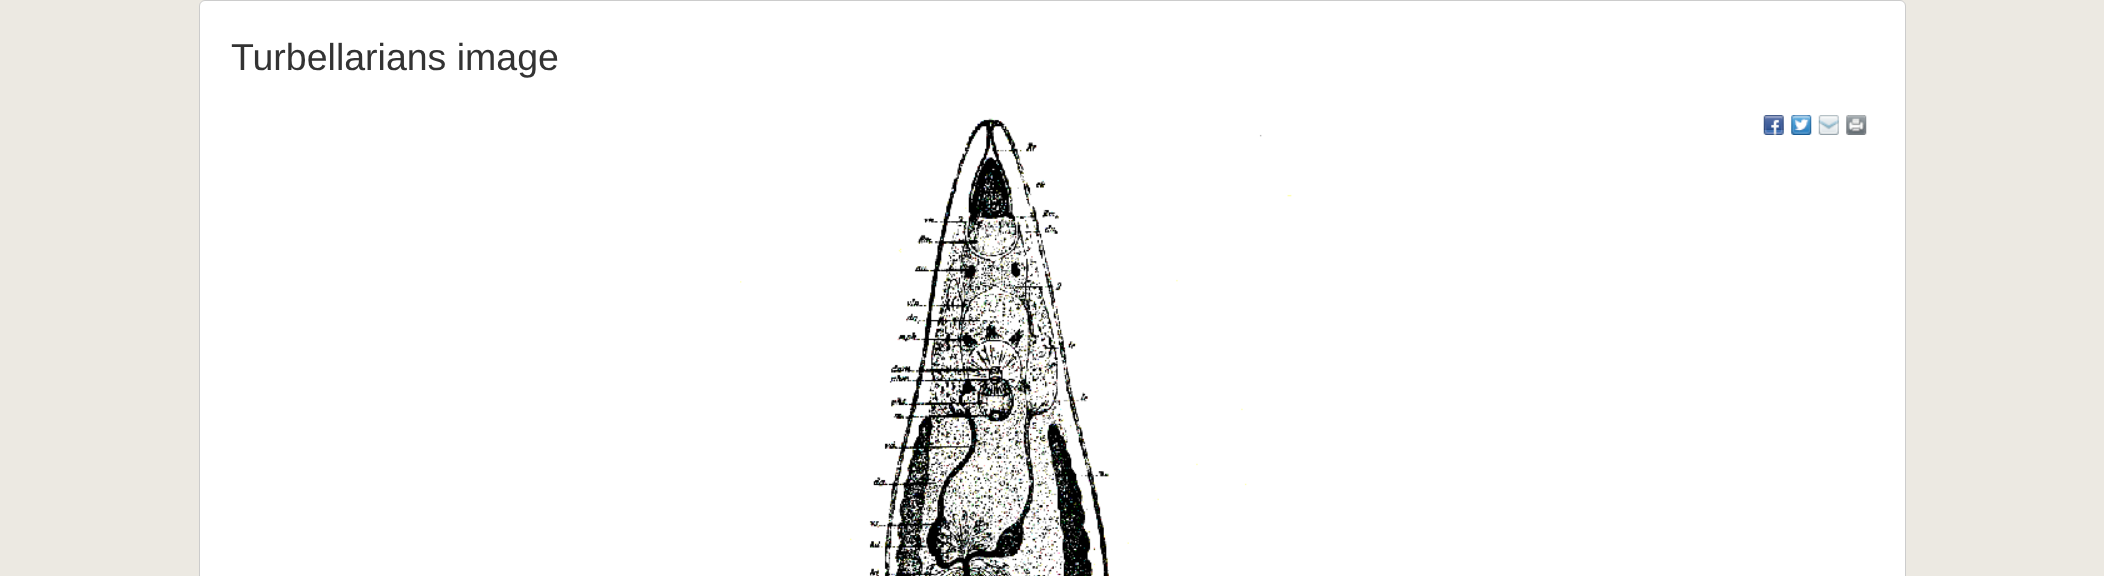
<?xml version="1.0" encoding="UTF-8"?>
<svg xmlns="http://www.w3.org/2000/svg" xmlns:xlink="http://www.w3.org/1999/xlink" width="2104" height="576">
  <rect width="100%" height="100%" fill="#ece9e2" />
  <rect x="199.5" y="0.5" width="1706" height="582" rx="5.5" fill="#ffffff" stroke="#cccccc" />
  <image x="740" y="118" width="552" height="458" xlink:href="image1.png" />
  <image x="1763" y="115" width="21" height="20" xlink:href="image2.png" />
  <image x="1791" y="115" width="21" height="20" xlink:href="image3.png" />
  <image x="1818" y="115" width="21" height="20" xlink:href="image4.png" />
  <image x="1846" y="115" width="21" height="20" xlink:href="image5.png" />
  <text x="231" y="70" style="font-family: Liberation Sans; font-size: 37.5px; fill: #333333">Turbellarians image</text>
</svg>
